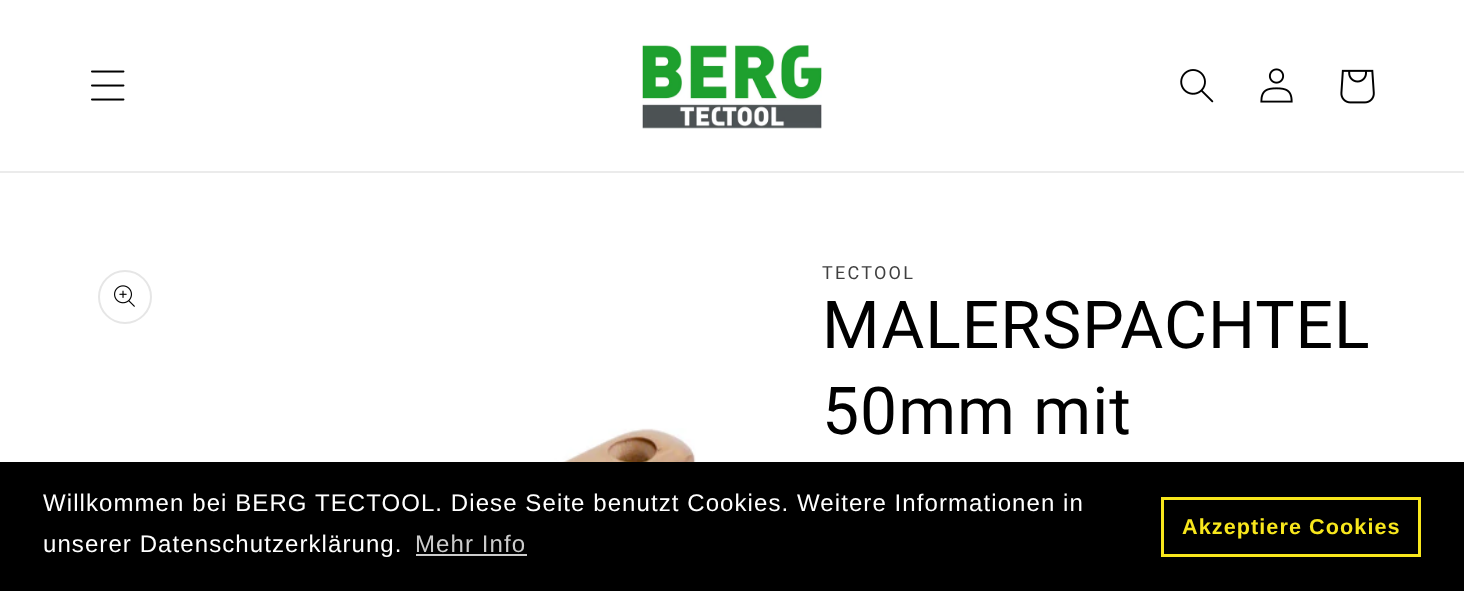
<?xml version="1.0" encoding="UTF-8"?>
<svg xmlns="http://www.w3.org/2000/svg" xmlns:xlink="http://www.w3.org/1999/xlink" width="1464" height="591">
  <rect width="100%" height="100%" fill="#ffffff" />
  <rect y="171" width="1464" height="2" fill="#ebebeb" />
  <image x="91" y="70" width="34" height="31" xlink:href="image1.png" />
  <image x="642" y="44" width="180" height="85" xlink:href="image2.png" />
  <image x="1180" y="69" width="34" height="34" xlink:href="image3.png" />
  <image x="1260" y="68" width="33" height="35" xlink:href="image4.png" />
  <image x="1340" y="69" width="35" height="35" xlink:href="image5.png" />
  <circle cx="125" cy="297" r="26" fill="none" stroke="#e6e6e6" stroke-width="2" />
  <image x="114" y="285" width="21" height="22" xlink:href="image6.png" />
  <image x="263" y="428" width="433" height="34" xlink:href="image7.png" />
  <rect y="462" width="1464" height="129" fill="#000000" />
  <rect x="416" y="554" width="111" height="2" fill="#cccccc" />
  <rect x="1162.5" y="498.5" width="257" height="57" fill="none" stroke="#f8e71c" stroke-width="3" />
  <text x="822" y="279" style="font-family: Roboto; font-size: 18px; letter-spacing: 2.25px; fill: #404040">TECTOOL</text>
  <text x="822" y="348" style="font-family: Roboto; font-size: 66px; letter-spacing: 1px; fill: #000000">MALERSPACHTEL</text>
  <text x="822" y="434" style="font-family: Roboto; font-size: 66px; letter-spacing: 1px; fill: #000000">50mm mit</text>
  <text x="43" y="511" style="font-family: Liberation Sans; font-size: 24px; letter-spacing: 1.08px; fill: #ffffff">Willkommen bei BERG TECTOOL. Diese Seite benutzt Cookies. Weitere Informationen in</text>
  <text x="43" y="552" style="font-family: Liberation Sans; font-size: 24px; letter-spacing: 1.08px; fill: #ffffff">unserer Datenschutzerklärung.</text>
  <text x="415" y="552" style="font-family: Liberation Sans; font-size: 24px; letter-spacing: 1.08px; fill: #cccccc">Mehr Info</text>
  <text x="1182" y="534" style="font-family: Liberation Sans; font-size: 21.6px; font-weight: bold; letter-spacing: 1.08px; fill: #f8e71c">Akzeptiere Cookies</text>
</svg>
